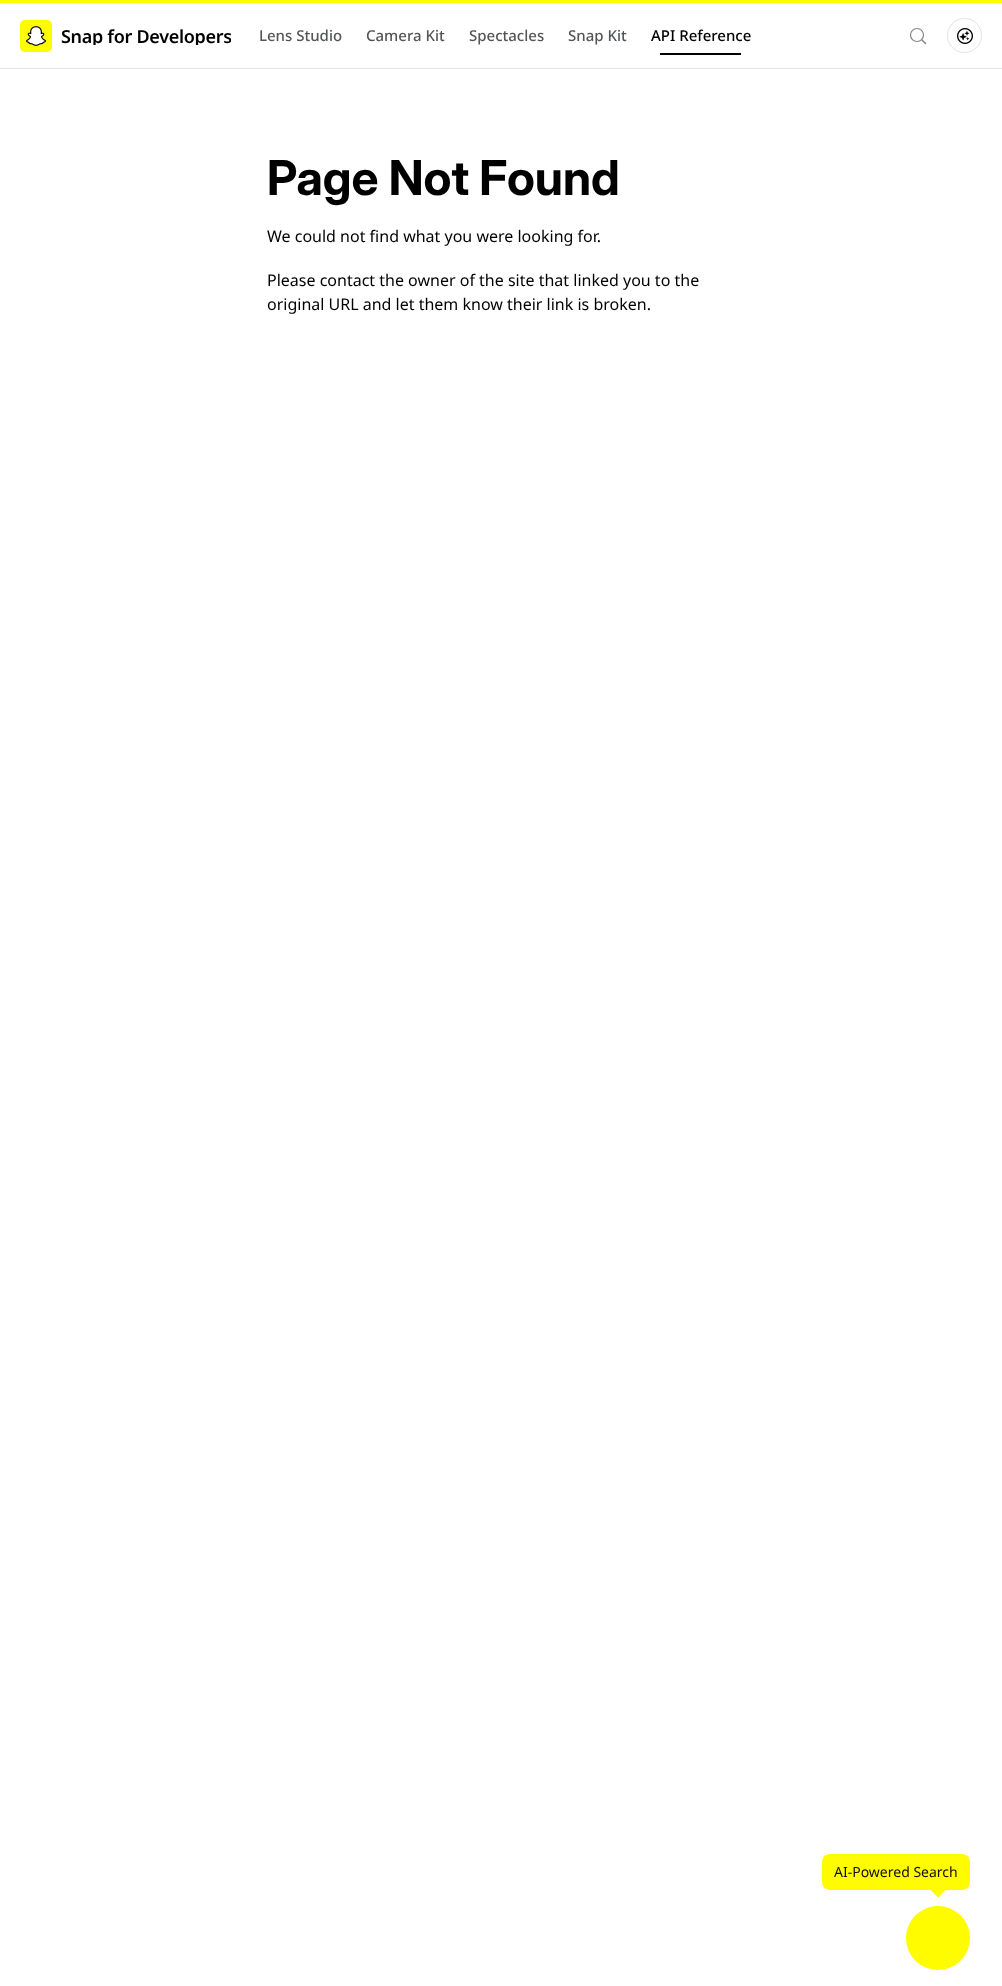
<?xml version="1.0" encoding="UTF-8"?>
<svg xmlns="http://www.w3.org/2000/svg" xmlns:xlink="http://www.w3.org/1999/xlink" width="1002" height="1986">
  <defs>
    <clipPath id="clip1"><rect x="61" y="27" width="170" height="18" /></clipPath>
  </defs>
  <rect width="100%" height="100%" fill="#ffffff" />
  <rect y="68" width="1002" height="1" fill="#e1e3e5" />
  <rect width="1002" height="3" fill="#fffc00" />
  <rect x="20" y="20" width="32" height="32" rx="5" fill="#fffc00" />
  <image x="26" y="26" width="20" height="20" xlink:href="image1.png" />
  <rect x="660" y="53" width="81" height="2" fill="#000000" />
  <circle cx="917" cy="35" r="6.5" fill="none" stroke="#848688" stroke-width="1.2" />
  <path d="M 925.5 43.5 l -3.5 -3.5" fill="none" stroke="#848688" stroke-width="1.5" stroke-linecap="round" stroke-linejoin="round" />
  <circle cx="964.5" cy="35.5" r="17" fill="none" stroke="#e1e3e5" />
  <image x="957" y="28" width="16" height="16" xlink:href="image2.png" />
  <path d="M 938 1874.5 l 11.5 11.5 l -11.5 11.5 l -11.5 -11.5 z" fill="#fffc00" />
  <rect x="822" y="1854" width="148" height="36" rx="8" fill="#fffc00" />
  <circle cx="938" cy="1938" r="32" fill="#fffc00" />
  <g clip-path="url(#clip1)">
    <text x="61" y="43" style="font-family: Noto Sans; font-size: 18px; font-weight: 600; letter-spacing: -0.3px; fill: #000000">Snap for Developers</text>
  </g>
  <text x="259" y="41" style="font-family: Noto Sans; font-size: 15px; font-weight: 500; fill: #545557">Lens Studio</text>
  <text x="366" y="41" style="font-family: Noto Sans; font-size: 15px; font-weight: 500; fill: #545557">Camera Kit</text>
  <text x="469" y="41" style="font-family: Noto Sans; font-size: 15px; font-weight: 500; fill: #545557">Spectacles</text>
  <text x="568" y="41" style="font-family: Noto Sans; font-size: 15px; font-weight: 500; fill: #545557">Snap Kit</text>
  <text x="651" y="41" style="font-family: Noto Sans; font-size: 15px; font-weight: 500; fill: #000000">API Reference</text>
  <text x="267" y="195" style="font-family: Inter; font-size: 48px; font-weight: bold; fill: #000000">Page Not Found</text>
  <text x="267" y="242" style="font-family: Noto Sans; font-size: 16px; fill: #000000">We could not find what you were looking for.</text>
  <text x="267" y="286" style="font-family: Noto Sans; font-size: 16px; fill: #000000">Please contact the owner of the site that linked you to the</text>
  <text x="267" y="310" style="font-family: Noto Sans; font-size: 16px; fill: #000000">original URL and let them know their link is broken.</text>
  <text x="834" y="1877" style="font-family: Noto Sans; font-size: 14px; fill: #111111">AI-Powered Search</text>
</svg>
